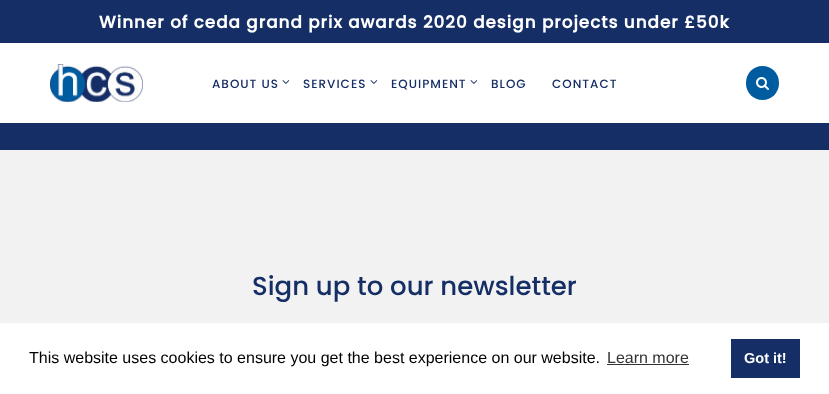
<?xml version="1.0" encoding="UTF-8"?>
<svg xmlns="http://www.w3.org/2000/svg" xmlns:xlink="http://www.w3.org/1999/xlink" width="829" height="394">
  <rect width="100%" height="100%" fill="#152e65" />
  <rect y="43" width="829" height="80" fill="#ffffff" />
  <image x="50" y="64" width="93" height="38" xlink:href="image1.png" />
  <image x="282" y="80" width="8" height="4" xlink:href="image2.png" />
  <image x="370" y="80" width="8" height="4" xlink:href="image2.png" />
  <image x="470" y="80" width="8" height="4" xlink:href="image2.png" />
  <rect x="746" y="66" width="33" height="34" rx="16.5" fill="#005ca0" />
  <image x="756" y="77" width="13" height="13" xlink:href="image3.png" />
  <rect y="150" width="829" height="173" fill="#f2f2f2" />
  <rect y="323" width="829" height="71" fill="#ffffff" />
  <rect x="607" y="364" width="82" height="1" fill="#333333" />
  <rect x="731" y="339" width="69" height="39" fill="#152e65" />
  <text x="99" y="28" style="font-family: Poppins; font-size: 16.8px; font-weight: bold; letter-spacing: 1px; fill: #ffffff">Winner of ceda grand prix awards 2020 design projects under £50k</text>
  <text x="212" y="88" style="font-family: Poppins; font-size: 12px; font-weight: 500; letter-spacing: 1px; fill: #152e65">ABOUT US</text>
  <text x="303" y="88" style="font-family: Poppins; font-size: 12px; font-weight: 500; letter-spacing: 1px; fill: #152e65">SERVICES</text>
  <text x="391" y="88" style="font-family: Poppins; font-size: 12px; font-weight: 500; letter-spacing: 1px; fill: #152e65">EQUIPMENT</text>
  <text x="491" y="88" style="font-family: Poppins; font-size: 12px; font-weight: 500; letter-spacing: 1px; fill: #152e65">BLOG</text>
  <text x="552" y="88" style="font-family: Poppins; font-size: 12px; font-weight: 500; letter-spacing: 1px; fill: #152e65">CONTACT</text>
  <text x="252" y="295" style="font-family: Poppins; font-size: 26px; font-weight: 500; fill: #152e65">Sign up to our newsletter</text>
  <text x="29" y="363" style="font-family: Liberation Sans; font-size: 16px; fill: #000000">This website uses cookies to ensure you get the best experience on our website.</text>
  <text x="607" y="363" style="font-family: Liberation Sans; font-size: 16px; fill: #333333">Learn more</text>
  <text x="744" y="363" style="font-family: Liberation Sans; font-size: 14.5px; font-weight: bold; fill: #ffffff">Got it!</text>
</svg>
